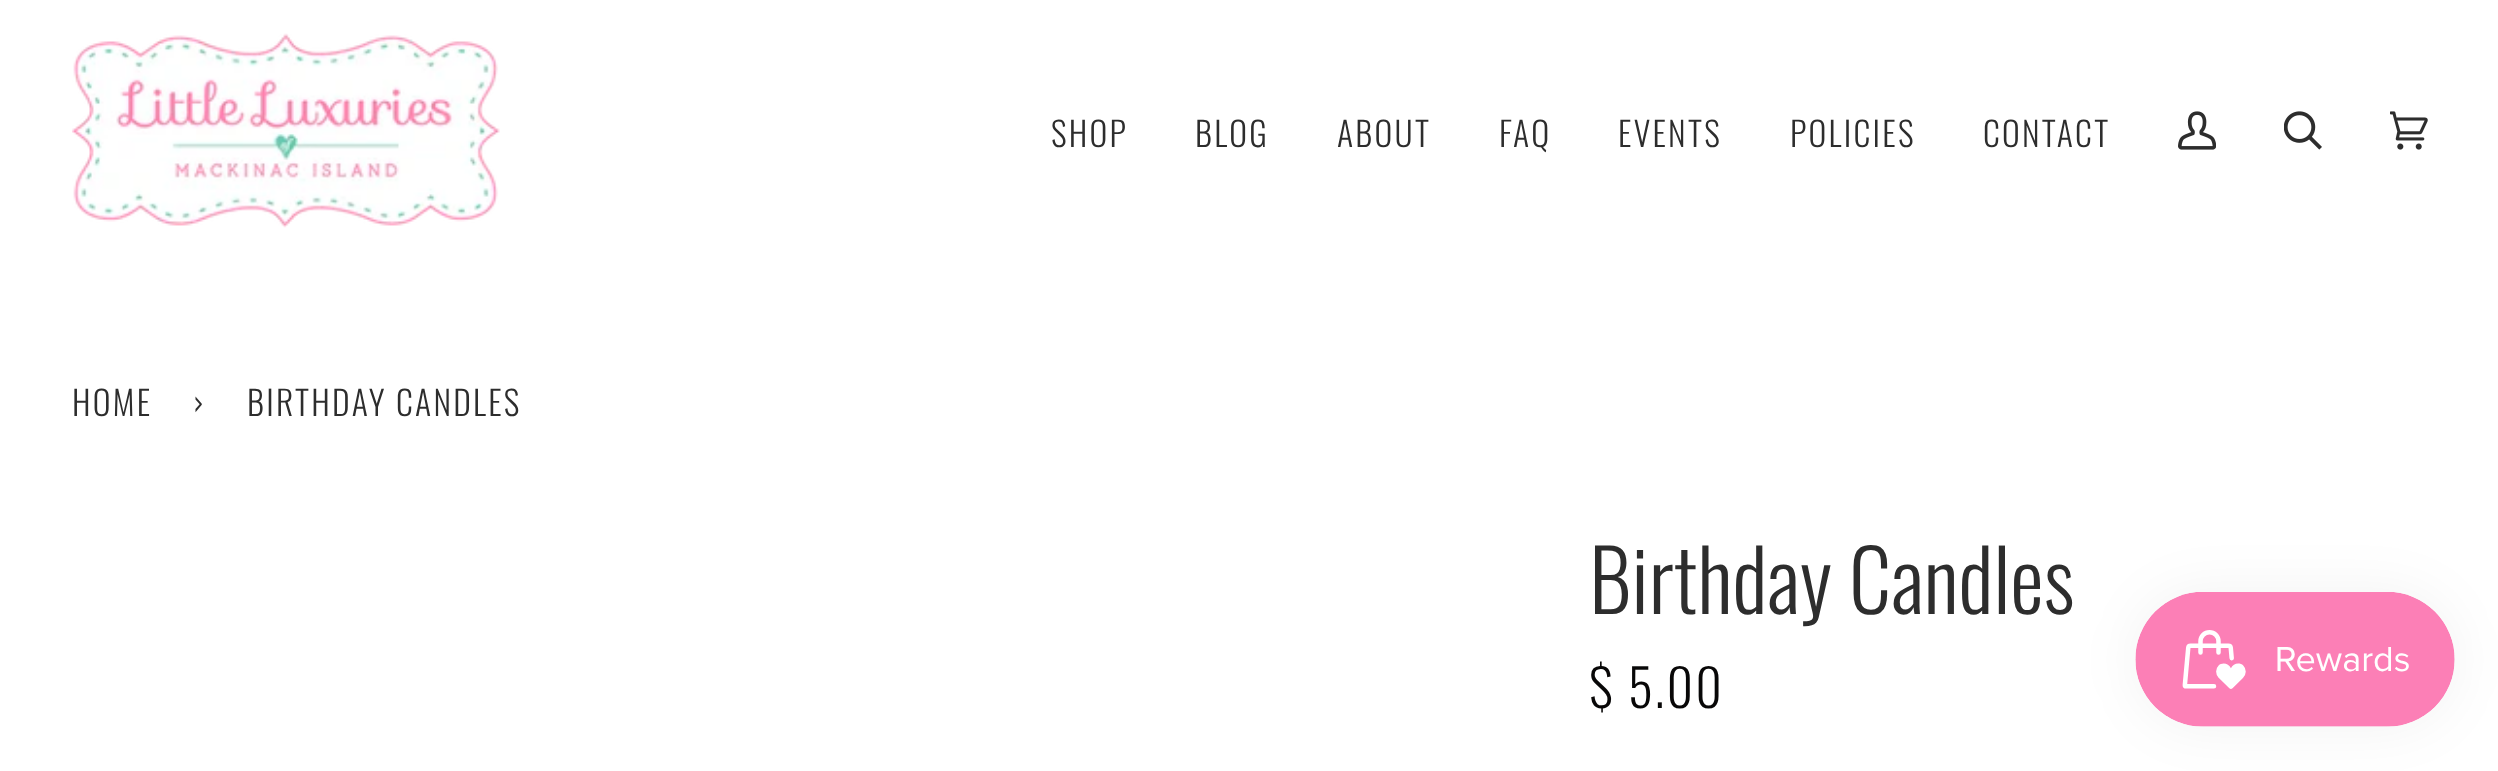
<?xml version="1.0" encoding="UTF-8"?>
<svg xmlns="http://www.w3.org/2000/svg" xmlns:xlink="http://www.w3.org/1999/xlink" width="2498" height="771">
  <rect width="100%" height="100%" fill="#ffffff" />
  <image x="72" y="33" width="428" height="195" xlink:href="image1.png" />
  <image x="2178" y="111" width="38" height="39" xlink:href="image2.png" />
  <image x="2284" y="111" width="38" height="39" xlink:href="image3.png" />
  <image x="2390" y="111" width="38" height="39" xlink:href="image4.png" />
  <rect x="2135" y="592" width="320" height="135" rx="67.5" fill="#000000" fill-opacity="0.05" filter="blur(28px)" />
  <image x="2135" y="592" width="320" height="135" xlink:href="image5.png" />
  <text x="1051" y="147" style="font-family: Oswald; font-size: 33.75px; font-weight: 300; letter-spacing: 2.25px; fill: #2d2d2d">SHOP</text>
  <text x="1195" y="147" style="font-family: Oswald; font-size: 33.75px; font-weight: 300; letter-spacing: 2.25px; fill: #2d2d2d">BLOG</text>
  <text x="1337" y="147" style="font-family: Oswald; font-size: 33.75px; font-weight: 300; letter-spacing: 2.25px; fill: #2d2d2d">ABOUT</text>
  <text x="1499" y="147" style="font-family: Oswald; font-size: 33.75px; font-weight: 300; letter-spacing: 2.25px; fill: #2d2d2d">FAQ</text>
  <text x="1618" y="147" style="font-family: Oswald; font-size: 33.75px; font-weight: 300; letter-spacing: 2.25px; fill: #2d2d2d">EVENTS</text>
  <text x="1790" y="147" style="font-family: Oswald; font-size: 33.75px; font-weight: 300; letter-spacing: 2.25px; fill: #2d2d2d">POLICIES</text>
  <text x="1983" y="147" style="font-family: Oswald; font-size: 33.75px; font-weight: 300; letter-spacing: 2.25px; fill: #2d2d2d">CONTACT</text>
  <text x="72" y="416" style="font-family: Oswald; font-size: 33.75px; font-weight: 300; letter-spacing: 2.25px; fill: #2d2d2d">HOME</text>
  <text x="193" y="416" style="font-family: Oswald; font-size: 33.75px; font-weight: 300; letter-spacing: 2.25px; fill: #2d2d2d">›</text>
  <text x="247" y="416" style="font-family: Oswald; font-size: 33.75px; font-weight: 300; letter-spacing: 2.25px; fill: #2d2d2d">BIRTHDAY CANDLES</text>
  <text x="1589" y="614" style="font-family: Oswald; font-size: 84.5px; font-weight: 300; fill: #2d2d2d">Birthday Candles</text>
  <text x="1589" y="708" style="font-family: Oswald; font-size: 51.5px; font-weight: 300; letter-spacing: 2.25px; fill: #080707">$ 5.00</text>
</svg>
